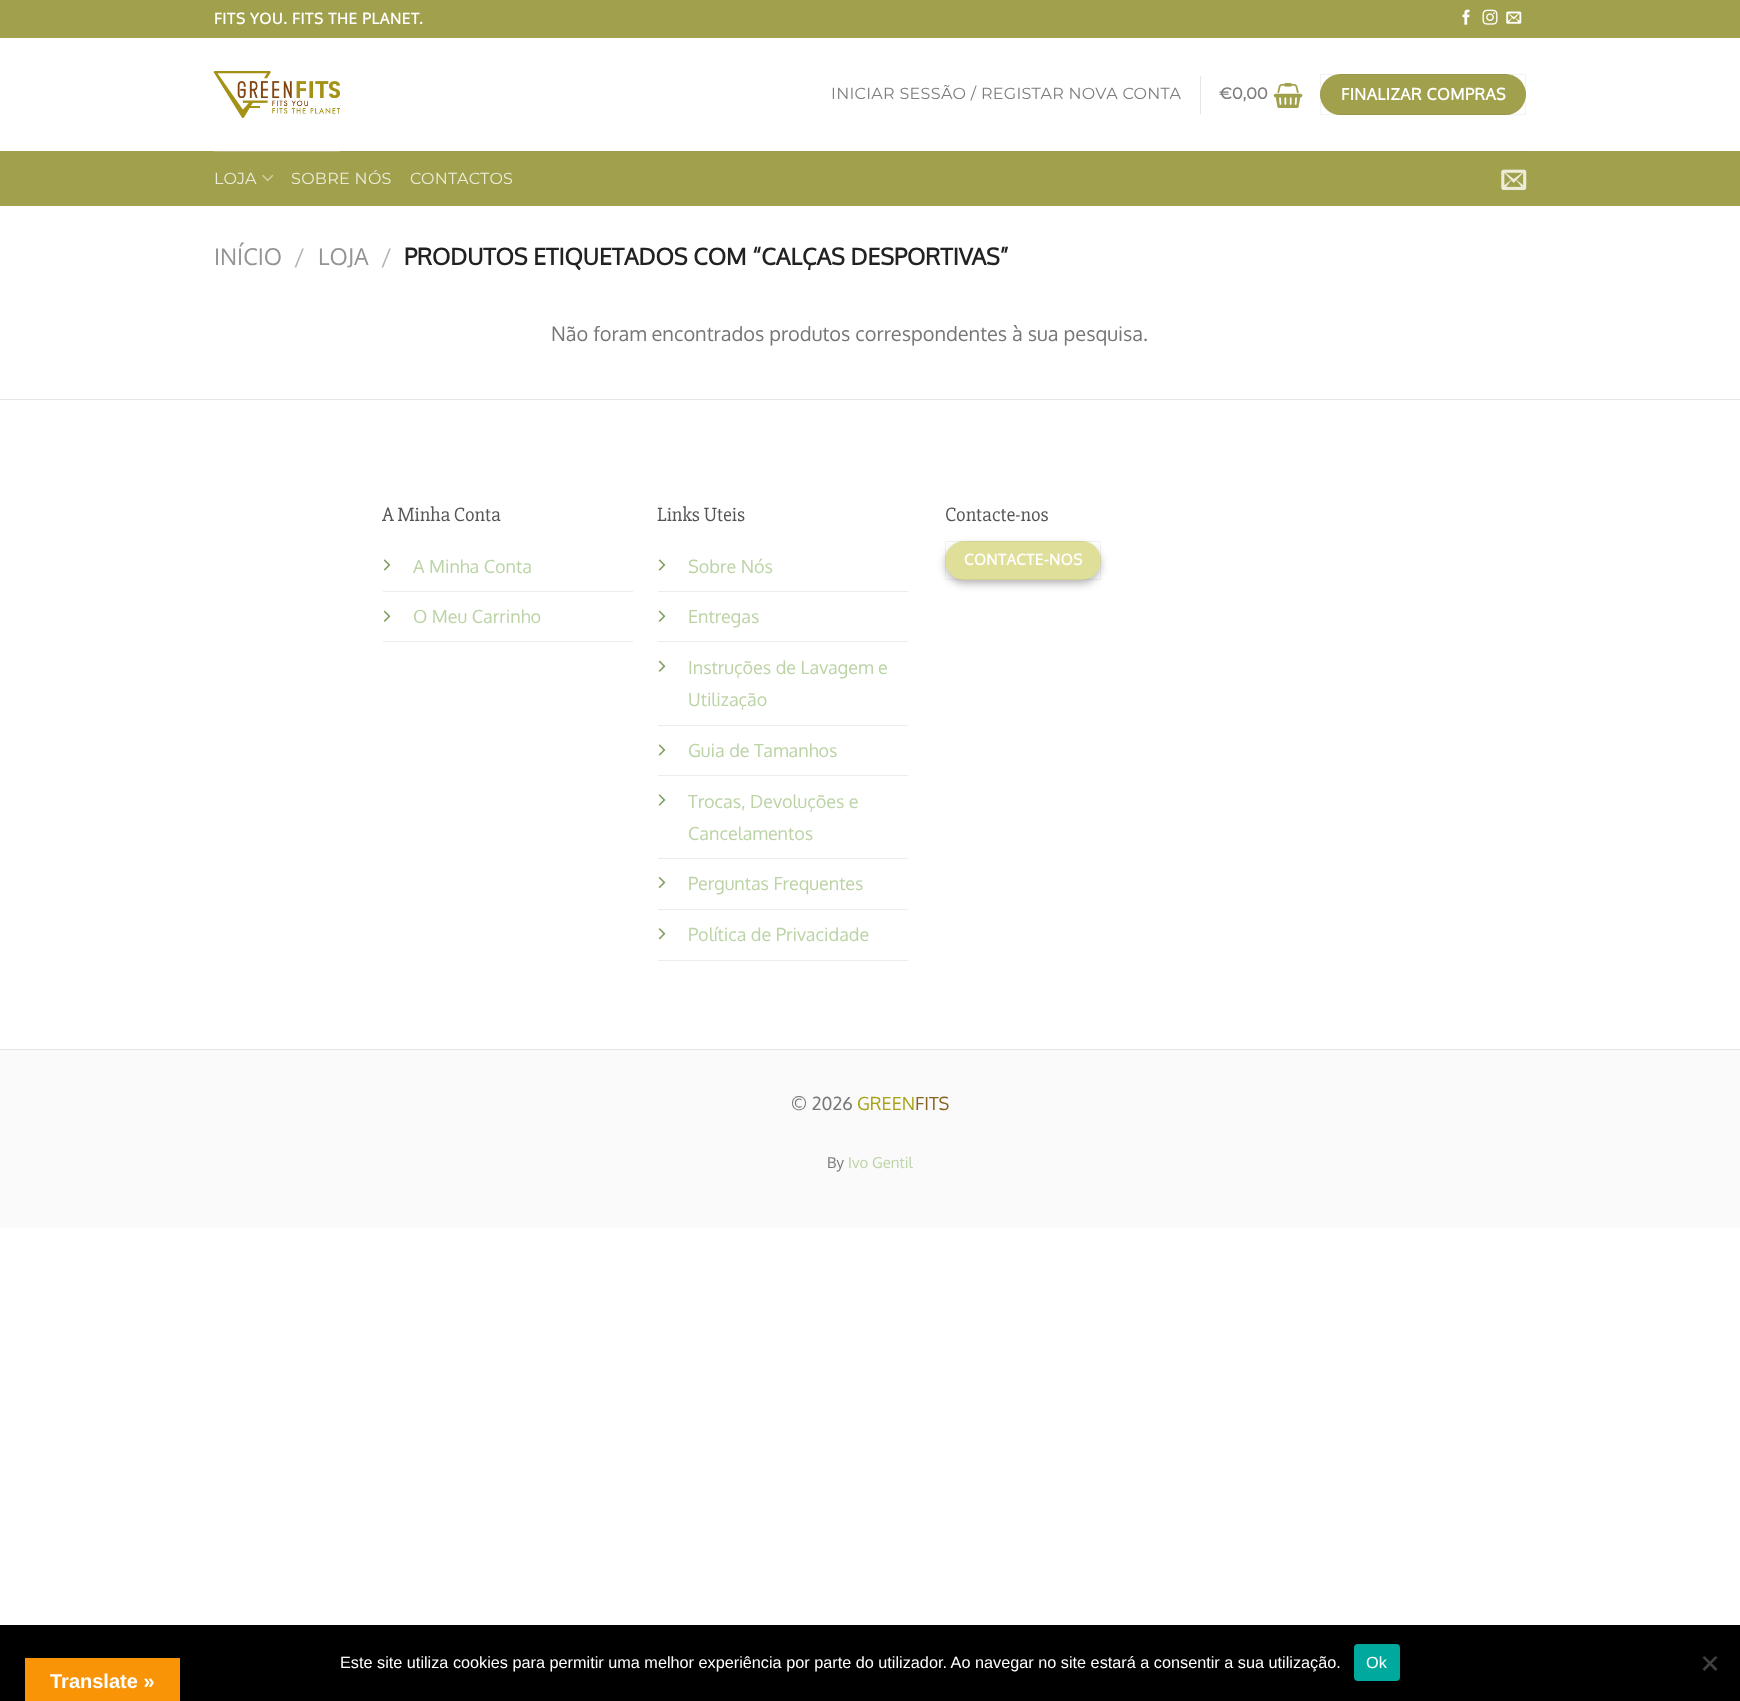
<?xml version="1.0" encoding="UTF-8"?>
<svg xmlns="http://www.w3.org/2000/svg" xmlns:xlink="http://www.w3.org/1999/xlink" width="1740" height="1701">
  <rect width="100%" height="100%" fill="#ffffff" />
  <rect width="1740" height="38" fill="#a0a04d" />
  <image x="1462" y="9" width="8" height="16" xlink:href="image1.png" />
  <image x="1482" y="9" width="16" height="16" xlink:href="image2.png" />
  <image x="1506" y="11" width="16" height="13" xlink:href="image3.png" />
  <rect y="151" width="1740" height="55" fill="#a0a04d" />
  <image x="213" y="71" width="127" height="81" xlink:href="image4.png" />
  <rect x="1200" y="76" width="1" height="38" fill="#e6e6e6" />
  <image x="1273" y="83" width="30" height="25" xlink:href="image5.png" />
  <rect x="1320" y="74" width="206" height="41" rx="20.5" fill="#a0a04d" />
  <rect x="1320.5" y="74.5" width="205" height="40" fill="none" stroke="#000000" stroke-opacity="0.05" />
  <rect x="214" y="151" width="1312" height="1" fill="#777777" fill-opacity="0.1" />
  <image x="262" y="174" width="12" height="8" xlink:href="image6.png" />
  <image x="1501" y="169" width="26" height="21" xlink:href="image7.png" />
  <rect y="399" width="1740" height="1" fill="#e6e6e6" />
  <rect x="383" y="591" width="250" height="1" fill="#ececec" />
  <image x="383" y="559" width="8" height="12" xlink:href="image8.png" />
  <rect x="383" y="641" width="250" height="1" fill="#ececec" />
  <image x="383" y="610" width="8" height="12" xlink:href="image9.png" />
  <rect x="658" y="591" width="250" height="1" fill="#ececec" />
  <image x="658" y="559" width="8" height="12" xlink:href="image8.png" />
  <rect x="658" y="641" width="250" height="1" fill="#ececec" />
  <image x="658" y="610" width="8" height="12" xlink:href="image9.png" />
  <rect x="658" y="725" width="250" height="1" fill="#ececec" />
  <image x="658" y="660" width="8" height="12" xlink:href="image9.png" />
  <rect x="658" y="775" width="250" height="1" fill="#ececec" />
  <image x="658" y="744" width="8" height="12" xlink:href="image8.png" />
  <rect x="658" y="858" width="250" height="1" fill="#ececec" />
  <image x="658" y="794" width="8" height="12" xlink:href="image8.png" />
  <rect x="658" y="909" width="250" height="1" fill="#ececec" />
  <image x="658" y="877" width="8" height="11" xlink:href="image10.png" />
  <rect x="658" y="960" width="250" height="1" fill="#ececec" />
  <image x="658" y="928" width="8" height="12" xlink:href="image11.png" />
  <rect x="945" y="545" width="156" height="39" rx="19.5" fill="#000000" fill-opacity="0.23" filter="blur(4px)" />
  <rect x="950" y="550" width="146" height="29" rx="14.5" fill="#000000" fill-opacity="0.16" filter="blur(4px)" />
  <rect x="945" y="541" width="156" height="39" rx="19.5" fill="#dfdf9a" />
  <rect x="945.5" y="541.5" width="155" height="38" fill="none" stroke="#000000" stroke-opacity="0.05" />
  <rect y="1049" width="1740" height="1" fill="#e6e6e6" />
  <rect y="1050" width="1740" height="178" fill="#fafafa" />
  <rect y="1625" width="1740" height="76" fill="#000000" />
  <rect x="1354" y="1644" width="46" height="37" rx="4" fill="#00a99d" />
  <path d="M 1715.5 1656 l 2 1.5 l -13 13.5 l -2 -2 z" fill="#404040" />
  <path d="M 1702.5 1657.5 l 2 -1.5 l 13 13 l -2 2 z" fill="#404040" />
  <rect x="25" y="1658" width="155" height="43" fill="#f89406" />
  <text x="214" y="24" style="font-family: Oxygen; font-size: 15px; font-weight: bold; letter-spacing: 0.75px; fill: #ffffff">FITS YOU. FITS THE PLANET.</text>
  <text x="831" y="99" style="font-family: Montserrat; font-size: 16px; font-weight: 100; letter-spacing: 0.3px; fill: #7d7d7d">INICIAR SESSÃO / REGISTAR NOVA CONTA</text>
  <text x="1219" y="99" style="font-family: Montserrat; font-size: 16px; font-weight: bold; letter-spacing: 0.3px; fill: #7d7d7d">€</text>
  <text x="1232" y="99" style="font-family: Montserrat; font-size: 16px; font-weight: bold; letter-spacing: 0.3px; fill: #7d7d7d">0,00</text>
  <text x="1341" y="100" style="font-family: Oxygen; font-size: 16px; font-weight: bold; letter-spacing: 0.5px; fill: #ffffff">FINALIZAR COMPRAS</text>
  <text x="214" y="184" style="font-family: Montserrat; font-size: 16px; font-weight: 100; letter-spacing: 0.3px; fill: #ececdb">LOJA</text>
  <text x="291" y="184" style="font-family: Montserrat; font-size: 16px; font-weight: 100; letter-spacing: 0.3px; fill: #ececdb">SOBRE NÓS</text>
  <text x="410" y="184" style="font-family: Montserrat; font-size: 16px; font-weight: 100; letter-spacing: 0.3px; fill: #ececdb">CONTACTOS</text>
  <text x="214" y="265" style="font-family: Oxygen; font-size: 23px; fill: #949494">INÍCIO</text>
  <text x="294" y="265" style="font-family: Oxygen; font-size: 23px; fill: #b2b2b2">/</text>
  <text x="318" y="265" style="font-family: Oxygen; font-size: 23px; fill: #949494">LOJA</text>
  <text x="381" y="265" style="font-family: Oxygen; font-size: 23px; fill: #b2b2b2">/</text>
  <text x="404" y="265" style="font-family: Oxygen; font-size: 23px; font-weight: bold; fill: #222222">PRODUTOS ETIQUETADOS COM “CALÇAS DESPORTIVAS”</text>
  <text x="551" y="341" style="font-family: Oxygen; font-size: 20px; fill: #777777">Não foram encontrados produtos correspondentes à sua pesquisa.</text>
  <text x="382" y="521" style="font-family: 'Slabo 27px'; font-size: 20px; fill: #555555">A Minha Conta</text>
  <text x="413" y="573" style="font-family: Oxygen; font-size: 18px; fill: #bbd3a5">A Minha Conta</text>
  <text x="413" y="623" style="font-family: Oxygen; font-size: 18px; fill: #bbd3a5">O Meu Carrinho</text>
  <text x="657" y="521" style="font-family: 'Slabo 27px'; font-size: 20px; fill: #555555">Links Uteis</text>
  <text x="688" y="573" style="font-family: Oxygen; font-size: 18px; fill: #bbd3a5">Sobre Nós</text>
  <text x="688" y="623" style="font-family: Oxygen; font-size: 18px; fill: #bbd3a5">Entregas</text>
  <text x="688" y="674" style="font-family: Oxygen; font-size: 18px; fill: #bbd3a5">Instruções de Lavagem e</text>
  <text x="688" y="706" style="font-family: Oxygen; font-size: 18px; fill: #bbd3a5">Utilização</text>
  <text x="688" y="757" style="font-family: Oxygen; font-size: 18px; fill: #bbd3a5">Guia de Tamanhos</text>
  <text x="688" y="808" style="font-family: Oxygen; font-size: 18px; fill: #bbd3a5">Trocas, Devoluções e</text>
  <text x="688" y="840" style="font-family: Oxygen; font-size: 18px; fill: #bbd3a5">Cancelamentos</text>
  <text x="688" y="890" style="font-family: Oxygen; font-size: 18px; fill: #bbd3a5">Perguntas Frequentes</text>
  <text x="688" y="941" style="font-family: Oxygen; font-size: 18px; fill: #bbd3a5">Política de Privacidade</text>
  <text x="945" y="521" style="font-family: 'Slabo 27px'; font-size: 20px; fill: #555555">Contacte-nos</text>
  <text x="964" y="565" style="font-family: Oxygen; font-size: 15px; font-weight: bold; letter-spacing: 0.5px; fill: #ffffff">CONTACTE-NOS</text>
  <text x="791" y="1110" style="font-family: Oxygen; font-size: 18px; fill: #777777">© 2026</text>
  <text x="857" y="1110" style="font-family: Oxygen; font-size: 18px; fill: #a8a318">GREEN</text>
  <text x="915" y="1110" style="font-family: Oxygen; font-size: 18px; fill: #896421">FITS</text>
  <text x="827" y="1168" style="font-family: Oxygen; font-size: 15px; fill: #777777">By</text>
  <text x="848" y="1168" style="font-family: Oxygen; font-size: 15px; fill: #bbd3a5">Ivo Gentil</text>
  <text x="340" y="1668" style="font-family: Liberation Sans; font-size: 16.25px; fill: #ffffff">Este site utiliza cookies para permitir uma melhor experiência por parte do utilizador. Ao navegar no site estará a consentir a sua utilização.</text>
  <text x="1366" y="1668" style="font-family: Liberation Sans; font-size: 16.25px; fill: #ffffff">Ok</text>
  <text x="50" y="1688" style="font-family: Liberation Sans; font-size: 20px; font-weight: bold; fill: #ffffff">Translate »</text>
</svg>
